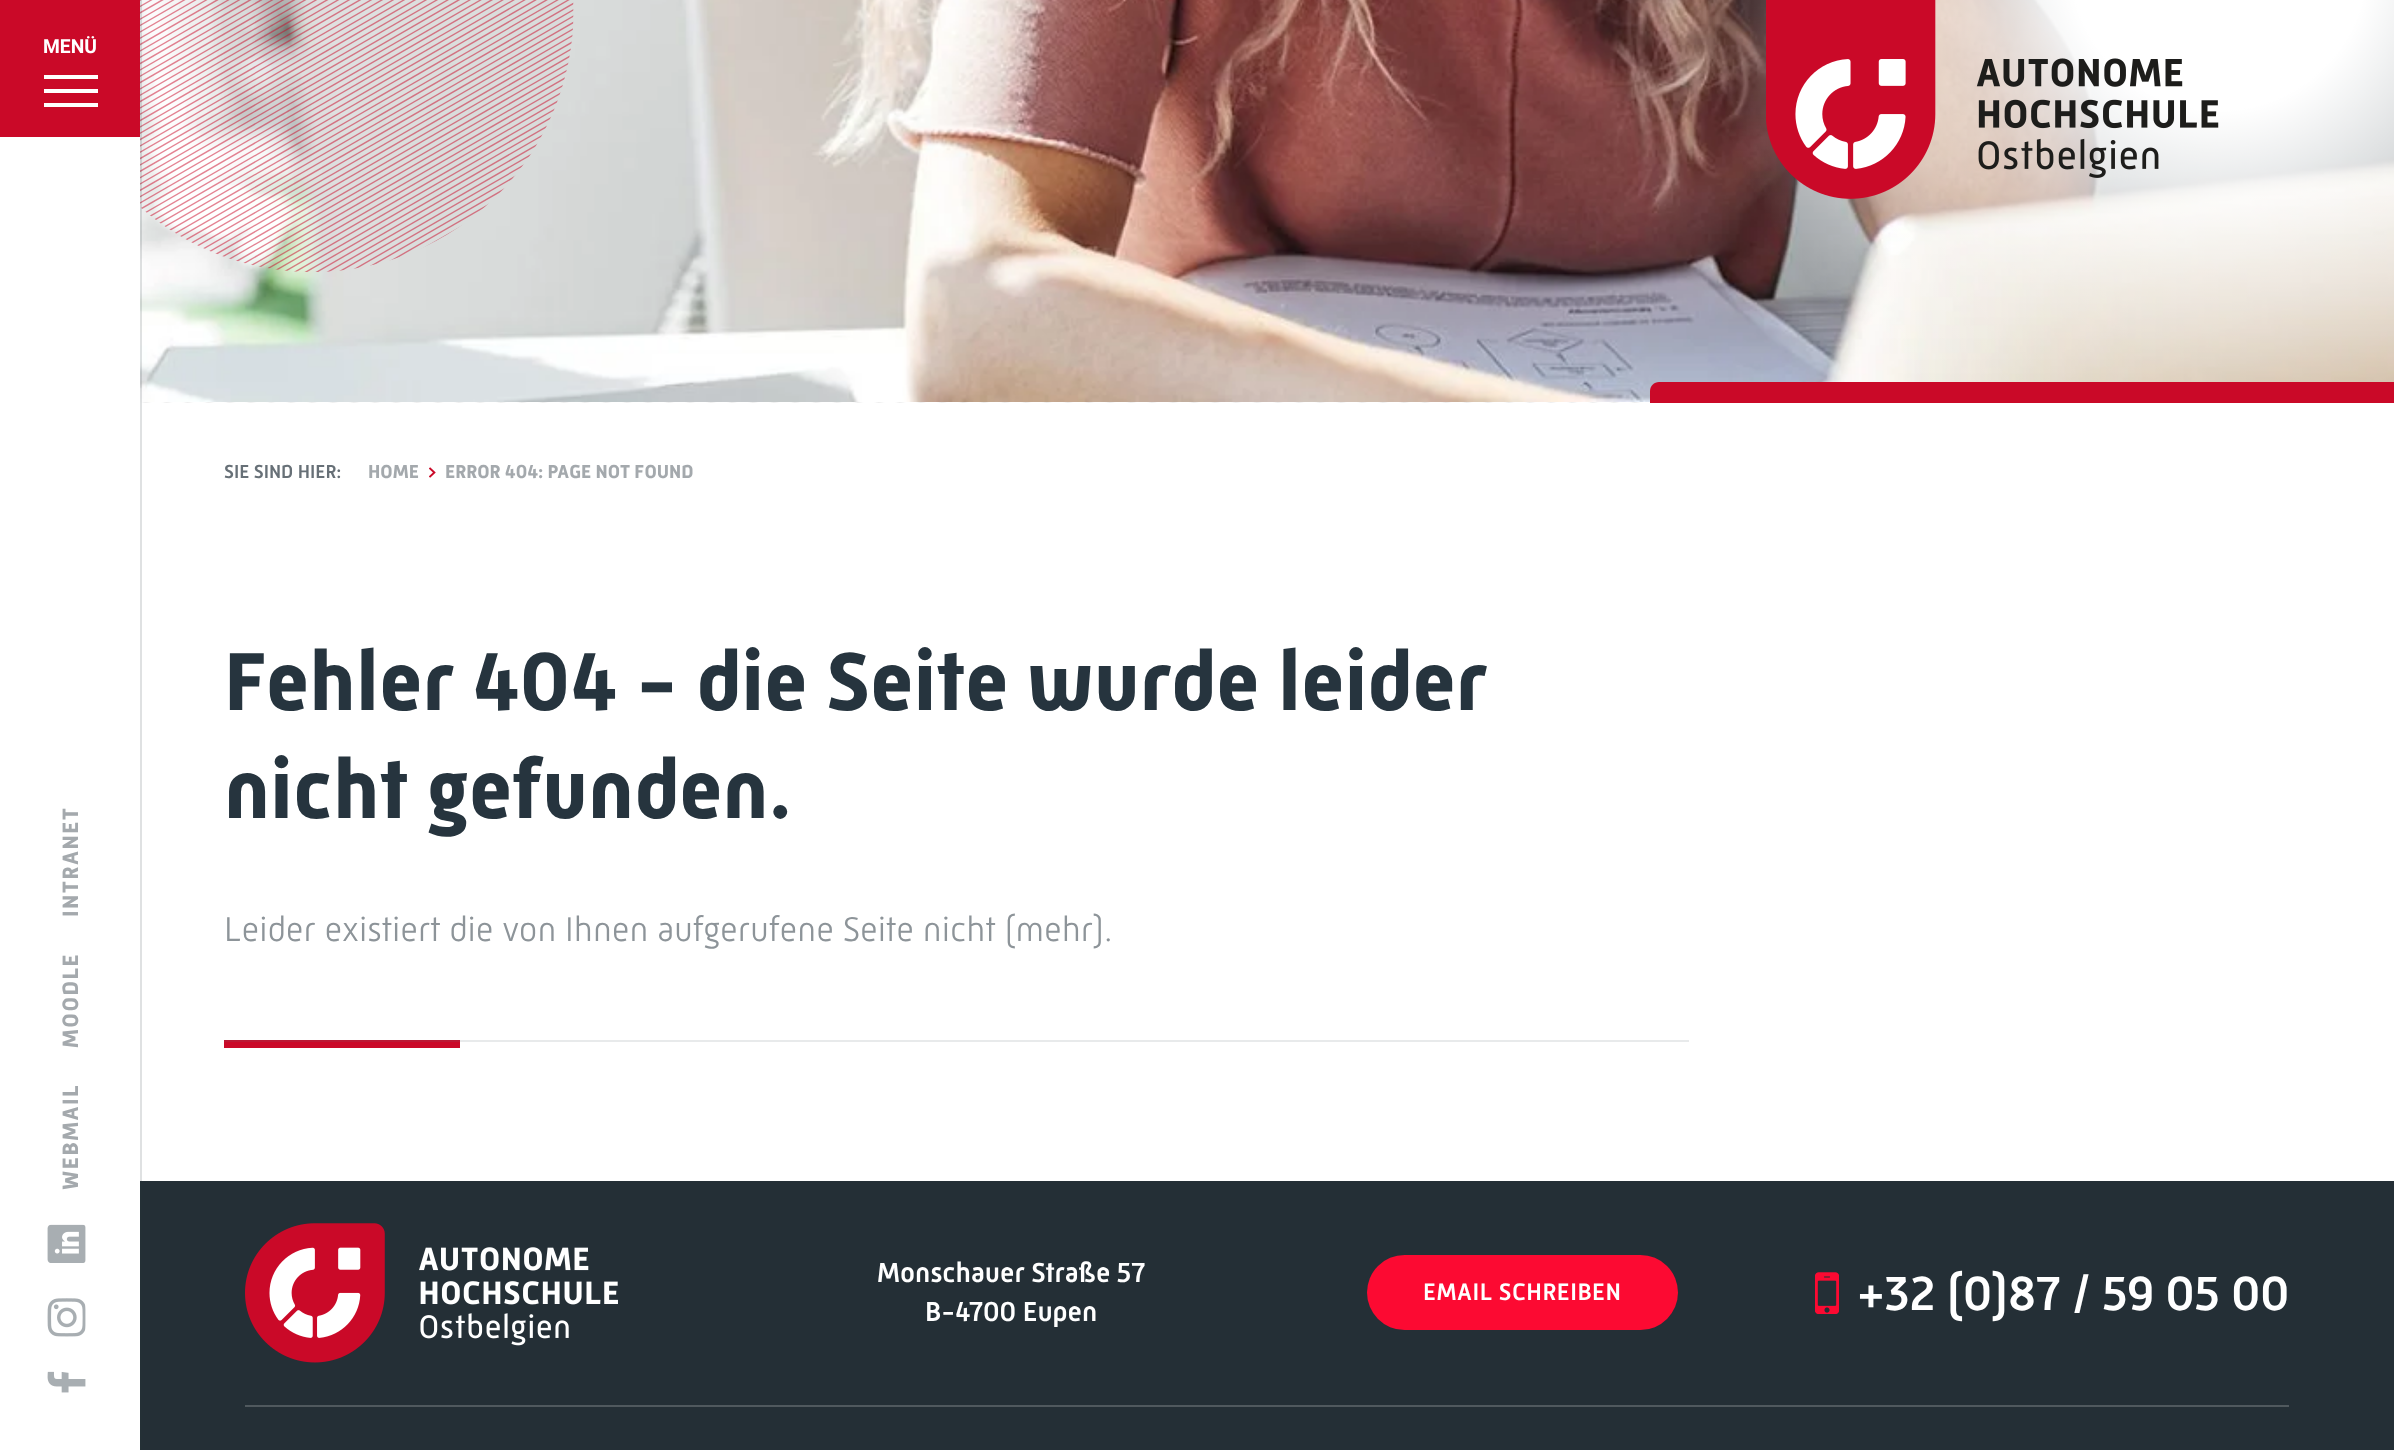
<?xml version="1.0" encoding="UTF-8"?>
<svg xmlns="http://www.w3.org/2000/svg" xmlns:xlink="http://www.w3.org/1999/xlink" width="2394" height="1450">
  <defs>
    <radialGradient id="g1" gradientUnits="userSpaceOnUse" cx="2219" cy="-38" r="742"><stop offset="0.2" stop-color="#ffffff" /><stop offset="0.7" stop-color="#ffffff" stop-opacity="0" /></radialGradient>
  </defs>
  <rect width="100%" height="100%" fill="#ffffff" />
  <image x="140" y="402" width="1510" height="1" xlink:href="image4.png" />
  <image x="140" y="0" width="2254" height="402" xlink:href="image5.png" />
  <image x="140" y="0" width="434" height="272" xlink:href="image6.png" />
  <rect x="140" y="1181" width="2254" height="269" fill="#242f36" />
  <path d="M 2 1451 h 140 v -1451 h -2 v 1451 z" fill="#26343e" fill-opacity="0.15" />
  <rect width="140" height="137" fill="#ca0928" />
  <rect x="44" y="75" width="54" height="4" fill="#ffffff" />
  <rect x="44" y="89" width="54" height="4" fill="#ffffff" />
  <rect x="44" y="103" width="54" height="4" fill="#ffffff" />
  <image x="47" y="1224" width="39" height="39" xlink:href="image1.png" />
  <image x="47" y="1298" width="39" height="39" xlink:href="image2.png" />
  <image x="47" y="1371" width="39" height="22" xlink:href="image3.png" />
  <rect x="1708" width="686" height="402" fill="url(#g1)" />
  <image x="1766" y="0" width="453" height="199" xlink:href="image7.png" />
  <path d="M 1659 382 h 735 v 21 h -744 v -12 c 0 -5 4 -9 9 -9 z" fill="#ca0928" />
  <image x="429" y="467" width="7" height="11" xlink:href="image8.png" />
  <rect x="224" y="1040" width="236" height="8" fill="#ca0928" />
  <rect x="224" y="1040" width="1465" height="2" fill="#677077" fill-opacity="0.15" />
  <rect x="245" y="1405" width="2044" height="2" fill="#50595e" />
  <image x="245" y="1223" width="373" height="140" xlink:href="image9.png" />
  <rect x="1367" y="1255" width="311" height="75" rx="37.5" fill="#fc0a32" />
  <image x="1815" y="1272" width="24" height="42" xlink:href="image10.png" />
  <text x="43" y="53" style="font-family: Roboto; font-size: 19.25px; font-weight: bold; fill: #ffffff">MENÜ</text>
  <text x="78" y="917" transform="rotate(-90 78 917)" style="font-family: 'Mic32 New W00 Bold'; font-size: 22.75px; font-weight: bold; letter-spacing: 1.5px; fill: #a4a9ad">INTRANET</text>
  <text x="78" y="1048" transform="rotate(-90 78 1048)" style="font-family: 'Mic32 New W00 Bold'; font-size: 22.75px; font-weight: bold; letter-spacing: 1.5px; fill: #a4a9ad">MOODLE</text>
  <text x="78" y="1190" transform="rotate(-90 78 1190)" style="font-family: 'Mic32 New W00 Bold'; font-size: 22.75px; font-weight: bold; letter-spacing: 1.5px; fill: #a4a9ad">WEBMAIL</text>
  <text x="224" y="478" style="font-family: 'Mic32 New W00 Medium'; font-size: 19.25px; font-weight: 500; fill: #677077">SIE SIND HIER:</text>
  <text x="368" y="478" style="font-family: 'Mic32 New W00 Bold'; font-size: 19.25px; font-weight: bold; fill: #a4a9ad">HOME</text>
  <text x="445" y="478" style="font-family: 'Mic32 New W00 Bold'; font-size: 19.25px; font-weight: bold; fill: #a4a9ad">ERROR 404: PAGE NOT FOUND</text>
  <text x="224" y="710" style="font-family: 'Mic32 New W00 Bold'; font-size: 84px; font-weight: bold; fill: #26343e">Fehler 404 - die Seite wurde leider</text>
  <text x="224" y="818" style="font-family: 'Mic32 New W00 Bold'; font-size: 84px; font-weight: bold; fill: #26343e">nicht gefunden.</text>
  <text x="224" y="941" style="font-family: 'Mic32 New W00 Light'; font-size: 35px; font-weight: 300; fill: #8d9499">Leider existiert die von Ihnen aufgerufene Seite nicht (mehr).</text>
  <text x="877" y="1282" style="font-family: 'Mic32 New W00 Medium'; font-size: 28px; font-weight: 500; fill: #ffffff">Monschauer Straße 57</text>
  <text x="925" y="1321" style="font-family: 'Mic32 New W00 Medium'; font-size: 28px; font-weight: 500; fill: #ffffff">B-4700 Eupen</text>
  <text x="1423" y="1300" style="font-family: 'Mic32 New W00 Medium'; font-size: 24.5px; font-weight: 500; letter-spacing: 0.5px; fill: #ffffff">EMAIL SCHREIBEN</text>
  <text x="1857" y="1310" style="font-family: 'Mic32 New W00 Medium'; font-size: 49px; font-weight: 500; fill: #ffffff">+32 (0)87 / 59 05 00</text>
</svg>
